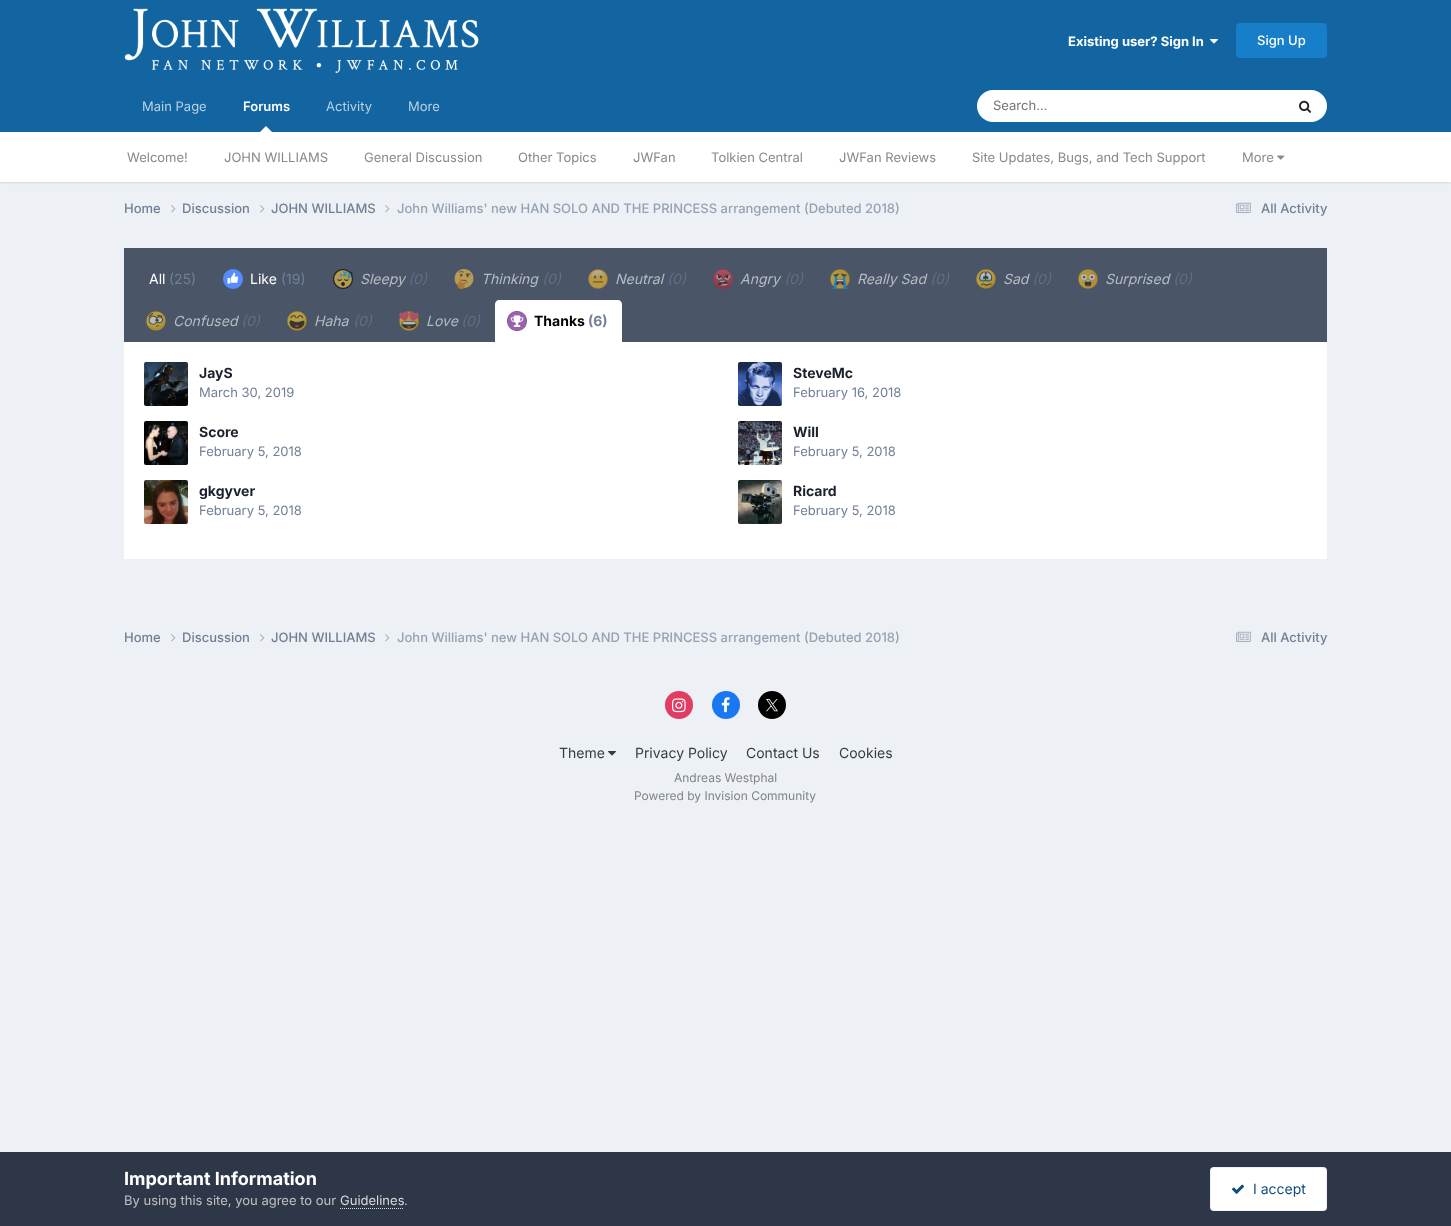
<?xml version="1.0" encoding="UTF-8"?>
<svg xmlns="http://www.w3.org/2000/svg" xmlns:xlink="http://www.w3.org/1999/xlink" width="1451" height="1226">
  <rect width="100%" height="100%" fill="#edf0f4" />
  <rect width="1451" height="132" fill="#1265a1" />
  <image x="124" y="8" width="355" height="66" xlink:href="image1.png" />
  <image x="1210" y="39" width="8" height="5" xlink:href="image2.png" />
  <rect x="1236" y="23" width="91" height="35" rx="4" fill="#177ec9" />
  <rect x="977" y="90" width="350" height="32" rx="16" fill="#ffffff" />
  <image x="1299" y="100" width="12" height="13" xlink:href="image3.png" />
  <rect y="133" width="1451" height="50" fill="#000000" fill-opacity="0.1" filter="blur(1px)" />
  <path d="M 272 132 h -12 l 6 -6 z" fill="#ffffff" />
  <rect y="132" width="1451" height="50" fill="#ffffff" />
  <image x="1277" y="155" width="8" height="5" xlink:href="image4.png" />
  <image x="171" y="205" width="5" height="8" xlink:href="image5.png" />
  <image x="260" y="205" width="5" height="8" xlink:href="image5.png" />
  <image x="385" y="205" width="5" height="8" xlink:href="image5.png" />
  <image x="1236" y="202" width="15" height="11" xlink:href="image6.png" />
  <rect x="124" y="248" width="1203" height="94" fill="#4a5568" />
  <image x="223" y="269" width="20" height="20" xlink:href="image7.png" />
  <image x="333" y="269" width="20" height="20" xlink:href="image8.png" />
  <image x="454" y="269" width="20" height="20" xlink:href="image9.png" />
  <image x="588" y="269" width="20" height="20" xlink:href="image10.png" />
  <image x="713" y="269" width="20" height="20" xlink:href="image11.png" />
  <image x="830" y="269" width="20" height="20" xlink:href="image12.png" />
  <image x="976" y="269" width="20" height="20" xlink:href="image13.png" />
  <image x="1078" y="269" width="20" height="20" xlink:href="image14.png" />
  <image x="146" y="311" width="20" height="20" xlink:href="image15.png" />
  <image x="287" y="311" width="20" height="20" xlink:href="image16.png" />
  <image x="399" y="311" width="20" height="20" xlink:href="image17.png" />
  <path d="M 499 300 h 119 c 2 0 4 2 4 4 v 38 h -127 v -38 c 0 -2 2 -4 4 -4 z" fill="#ffffff" />
  <image x="507" y="311" width="20" height="20" xlink:href="image18.png" />
  <rect x="124" y="342" width="1203" height="217" fill="#ffffff" />
  <image x="144" y="362" width="44" height="44" xlink:href="image19.png" />
  <image x="738" y="362" width="44" height="44" xlink:href="image20.png" />
  <image x="144" y="421" width="44" height="44" xlink:href="image21.png" />
  <image x="738" y="421" width="44" height="44" xlink:href="image22.png" />
  <image x="144" y="480" width="44" height="44" xlink:href="image23.png" />
  <image x="738" y="480" width="44" height="44" xlink:href="image24.png" />
  <image x="171" y="634" width="5" height="8" xlink:href="image5.png" />
  <image x="260" y="634" width="5" height="8" xlink:href="image5.png" />
  <image x="385" y="634" width="5" height="8" xlink:href="image5.png" />
  <image x="1236" y="631" width="15" height="11" xlink:href="image6.png" />
  <circle cx="679" cy="705" r="14" fill="#e13d62" />
  <image x="672" y="698" width="14" height="15" xlink:href="image25.png" />
  <circle cx="726" cy="705" r="14" fill="#1778f2" />
  <image x="721" y="697" width="9" height="16" xlink:href="image26.png" />
  <circle cx="772" cy="705" r="14" fill="#000000" />
  <image x="766" y="699" width="12" height="13" xlink:href="image27.png" />
  <image x="608" y="751" width="8" height="5" xlink:href="image28.png" />
  <rect y="1152" width="1451" height="74" fill="#2d3748" />
  <path d="M 340 1208.5 h 64" fill="none" stroke="#dadada" stroke-dasharray="1 1" />
  <rect x="1210" y="1167" width="117" height="44" rx="4" fill="#ffffff" />
  <rect x="1210.5" y="1167.5" width="116" height="43" rx="3.5" fill="none" stroke="#0e4c79" stroke-opacity="0.07" />
  <image x="1232" y="1184" width="12" height="10" xlink:href="image29.png" />
  <text x="1068" y="46" style="font-family: Inter; font-size: 13px; font-weight: bold; fill: #ffffff">Existing user? Sign In</text>
  <text x="1257" y="45" style="font-family: Inter; font-size: 13px; font-weight: 500; fill: #ffffff">Sign Up</text>
  <text x="993" y="110" style="font-family: Inter; font-size: 13px; fill: #757575">Search...</text>
  <text x="243" y="111" style="font-family: Inter; font-size: 13px; font-weight: 600; fill: #ffffff">Forums</text>
  <text x="127" y="162" style="font-family: Inter; font-size: 13px; fill: #868a8d">Welcome!</text>
  <text x="224" y="162" style="font-family: Inter; font-size: 13px; fill: #868a8d">JOHN WILLIAMS</text>
  <text x="364" y="162" style="font-family: Inter; font-size: 13px; fill: #868a8d">General Discussion</text>
  <text x="518" y="162" style="font-family: Inter; font-size: 13px; fill: #868a8d">Other Topics</text>
  <text x="633" y="162" style="font-family: Inter; font-size: 13px; fill: #868a8d">JWFan</text>
  <text x="711" y="162" style="font-family: Inter; font-size: 13px; fill: #868a8d">Tolkien Central</text>
  <text x="839" y="162" style="font-family: Inter; font-size: 13px; fill: #868a8d">JWFan Reviews</text>
  <text x="972" y="162" style="font-family: Inter; font-size: 13px; fill: #868a8d">Site Updates, Bugs, and Tech Support</text>
  <text x="1242" y="162" style="font-family: Inter; font-size: 13px; fill: #868a8d">More</text>
  <text x="142" y="111" style="font-family: Inter; font-size: 13px; fill: #b8d1e3">Main Page</text>
  <text x="326" y="111" style="font-family: Inter; font-size: 13px; fill: #b8d1e3">Activity</text>
  <text x="408" y="111" style="font-family: Inter; font-size: 13px; fill: #b8d1e3">More</text>
  <text x="124" y="213" style="font-family: Inter; font-size: 13px; font-weight: 500; fill: #718096">Home</text>
  <text x="182" y="213" style="font-family: Inter; font-size: 13px; font-weight: 500; fill: #718096">Discussion</text>
  <text x="271" y="213" style="font-family: Inter; font-size: 13px; font-weight: 500; fill: #718096">JOHN WILLIAMS</text>
  <text x="397" y="213" style="font-family: Inter; font-size: 13px; font-weight: 500; fill: #96a2b2">John Williams' new HAN SOLO AND THE PRINCESS arrangement (Debuted 2018)</text>
  <text x="1261" y="213" style="font-family: Inter; font-size: 13px; font-weight: 500; fill: #718096">All Activity</text>
  <text x="149" y="284" style="font-family: Inter; font-size: 14px; fill: #ffffff">All</text>
  <text x="169" y="284" style="font-family: Inter; font-size: 14px; fill: #718096">(25)</text>
  <text x="250" y="284" style="font-family: Inter; font-size: 14px; fill: #ffffff">Like</text>
  <text x="281" y="284" style="font-family: Inter; font-size: 14px; fill: #718096">(19)</text>
  <text x="360" y="284" style="font-family: Inter; font-size: 14px; font-style: italic; fill: #b7bbc3">Sleepy</text>
  <text x="408" y="284" style="font-family: Inter; font-size: 14px; font-style: italic; fill: #616f84">(0)</text>
  <text x="481" y="284" style="font-family: Inter; font-size: 14px; font-style: italic; fill: #b7bbc3">Thinking</text>
  <text x="542" y="284" style="font-family: Inter; font-size: 14px; font-style: italic; fill: #616f84">(0)</text>
  <text x="615" y="284" style="font-family: Inter; font-size: 14px; font-style: italic; fill: #b7bbc3">Neutral</text>
  <text x="667" y="284" style="font-family: Inter; font-size: 14px; font-style: italic; fill: #616f84">(0)</text>
  <text x="740" y="284" style="font-family: Inter; font-size: 14px; font-style: italic; fill: #b7bbc3">Angry</text>
  <text x="784" y="284" style="font-family: Inter; font-size: 14px; font-style: italic; fill: #616f84">(0)</text>
  <text x="857" y="284" style="font-family: Inter; font-size: 14px; font-style: italic; fill: #b7bbc3">Really Sad</text>
  <text x="930" y="284" style="font-family: Inter; font-size: 14px; font-style: italic; fill: #616f84">(0)</text>
  <text x="1003" y="284" style="font-family: Inter; font-size: 14px; font-style: italic; fill: #b7bbc3">Sad</text>
  <text x="1032" y="284" style="font-family: Inter; font-size: 14px; font-style: italic; fill: #616f84">(0)</text>
  <text x="1105" y="284" style="font-family: Inter; font-size: 14px; font-style: italic; fill: #b7bbc3">Surprised</text>
  <text x="1173" y="284" style="font-family: Inter; font-size: 14px; font-style: italic; fill: #616f84">(0)</text>
  <text x="173" y="326" style="font-family: Inter; font-size: 14px; font-style: italic; fill: #b7bbc3">Confused</text>
  <text x="241" y="326" style="font-family: Inter; font-size: 14px; font-style: italic; fill: #616f84">(0)</text>
  <text x="314" y="326" style="font-family: Inter; font-size: 14px; font-style: italic; fill: #b7bbc3">Haha</text>
  <text x="353" y="326" style="font-family: Inter; font-size: 14px; font-style: italic; fill: #616f84">(0)</text>
  <text x="426" y="326" style="font-family: Inter; font-size: 14px; font-style: italic; fill: #b7bbc3">Love</text>
  <text x="461" y="326" style="font-family: Inter; font-size: 14px; font-style: italic; fill: #616f84">(0)</text>
  <text x="534" y="326" style="font-family: Inter; font-size: 14px; font-weight: bold; fill: #000000">Thanks</text>
  <text x="588" y="326" style="font-family: Inter; font-size: 14px; font-weight: bold; fill: #718096">(6)</text>
  <text x="199" y="378" style="font-family: Inter; font-size: 14px; font-weight: bold; fill: #1a202c">JayS</text>
  <text x="199" y="397" style="font-family: Inter; font-size: 13px; fill: #718096">March 30, 2019</text>
  <text x="793" y="378" style="font-family: Inter; font-size: 14px; font-weight: bold; fill: #1a202c">SteveMc</text>
  <text x="793" y="397" style="font-family: Inter; font-size: 13px; fill: #718096">February 16, 2018</text>
  <text x="199" y="437" style="font-family: Inter; font-size: 14px; font-weight: bold; fill: #1a202c">Score</text>
  <text x="199" y="456" style="font-family: Inter; font-size: 13px; fill: #718096">February 5, 2018</text>
  <text x="793" y="437" style="font-family: Inter; font-size: 14px; font-weight: bold; fill: #1a202c">Will</text>
  <text x="793" y="456" style="font-family: Inter; font-size: 13px; fill: #718096">February 5, 2018</text>
  <text x="199" y="496" style="font-family: Inter; font-size: 14px; font-weight: bold; fill: #1a202c">gkgyver</text>
  <text x="199" y="515" style="font-family: Inter; font-size: 13px; fill: #718096">February 5, 2018</text>
  <text x="793" y="496" style="font-family: Inter; font-size: 14px; font-weight: bold; fill: #1a202c">Ricard</text>
  <text x="793" y="515" style="font-family: Inter; font-size: 13px; fill: #718096">February 5, 2018</text>
  <text x="124" y="642" style="font-family: Inter; font-size: 13px; font-weight: 500; fill: #718096">Home</text>
  <text x="182" y="642" style="font-family: Inter; font-size: 13px; font-weight: 500; fill: #718096">Discussion</text>
  <text x="271" y="642" style="font-family: Inter; font-size: 13px; font-weight: 500; fill: #718096">JOHN WILLIAMS</text>
  <text x="397" y="642" style="font-family: Inter; font-size: 13px; font-weight: 500; fill: #96a2b2">John Williams' new HAN SOLO AND THE PRINCESS arrangement (Debuted 2018)</text>
  <text x="1261" y="642" style="font-family: Inter; font-size: 13px; font-weight: 500; fill: #718096">All Activity</text>
  <text x="559" y="758" style="font-family: Inter; font-size: 14px; fill: #353c41">Theme</text>
  <text x="635" y="758" style="font-family: Inter; font-size: 14px; fill: #353c41">Privacy Policy</text>
  <text x="746" y="758" style="font-family: Inter; font-size: 14px; fill: #353c41">Contact Us</text>
  <text x="839" y="758" style="font-family: Inter; font-size: 14px; fill: #353c41">Cookies</text>
  <text x="674" y="782" style="font-family: Inter; font-size: 12px; fill: #7f8489">Andreas Westphal</text>
  <text x="634" y="800" style="font-family: Inter; font-size: 12px; fill: #7f8489">Powered by Invision Community</text>
  <text x="124" y="1185" style="font-family: Inter; font-size: 18px; font-weight: bold; fill: #ffffff">Important Information</text>
  <text x="124" y="1205" style="font-family: Inter; font-size: 13px; fill: #c0c0c0">By using this site, you agree to our</text>
  <text x="340" y="1205" style="font-family: Inter; font-size: 13px; fill: #dadada">Guidelines</text>
  <text x="404" y="1205" style="font-family: Inter; font-size: 13px; fill: #c0c0c0">.</text>
  <text x="1253" y="1194" style="font-family: Inter; font-size: 14px; fill: #0e4c79">I accept</text>
</svg>
